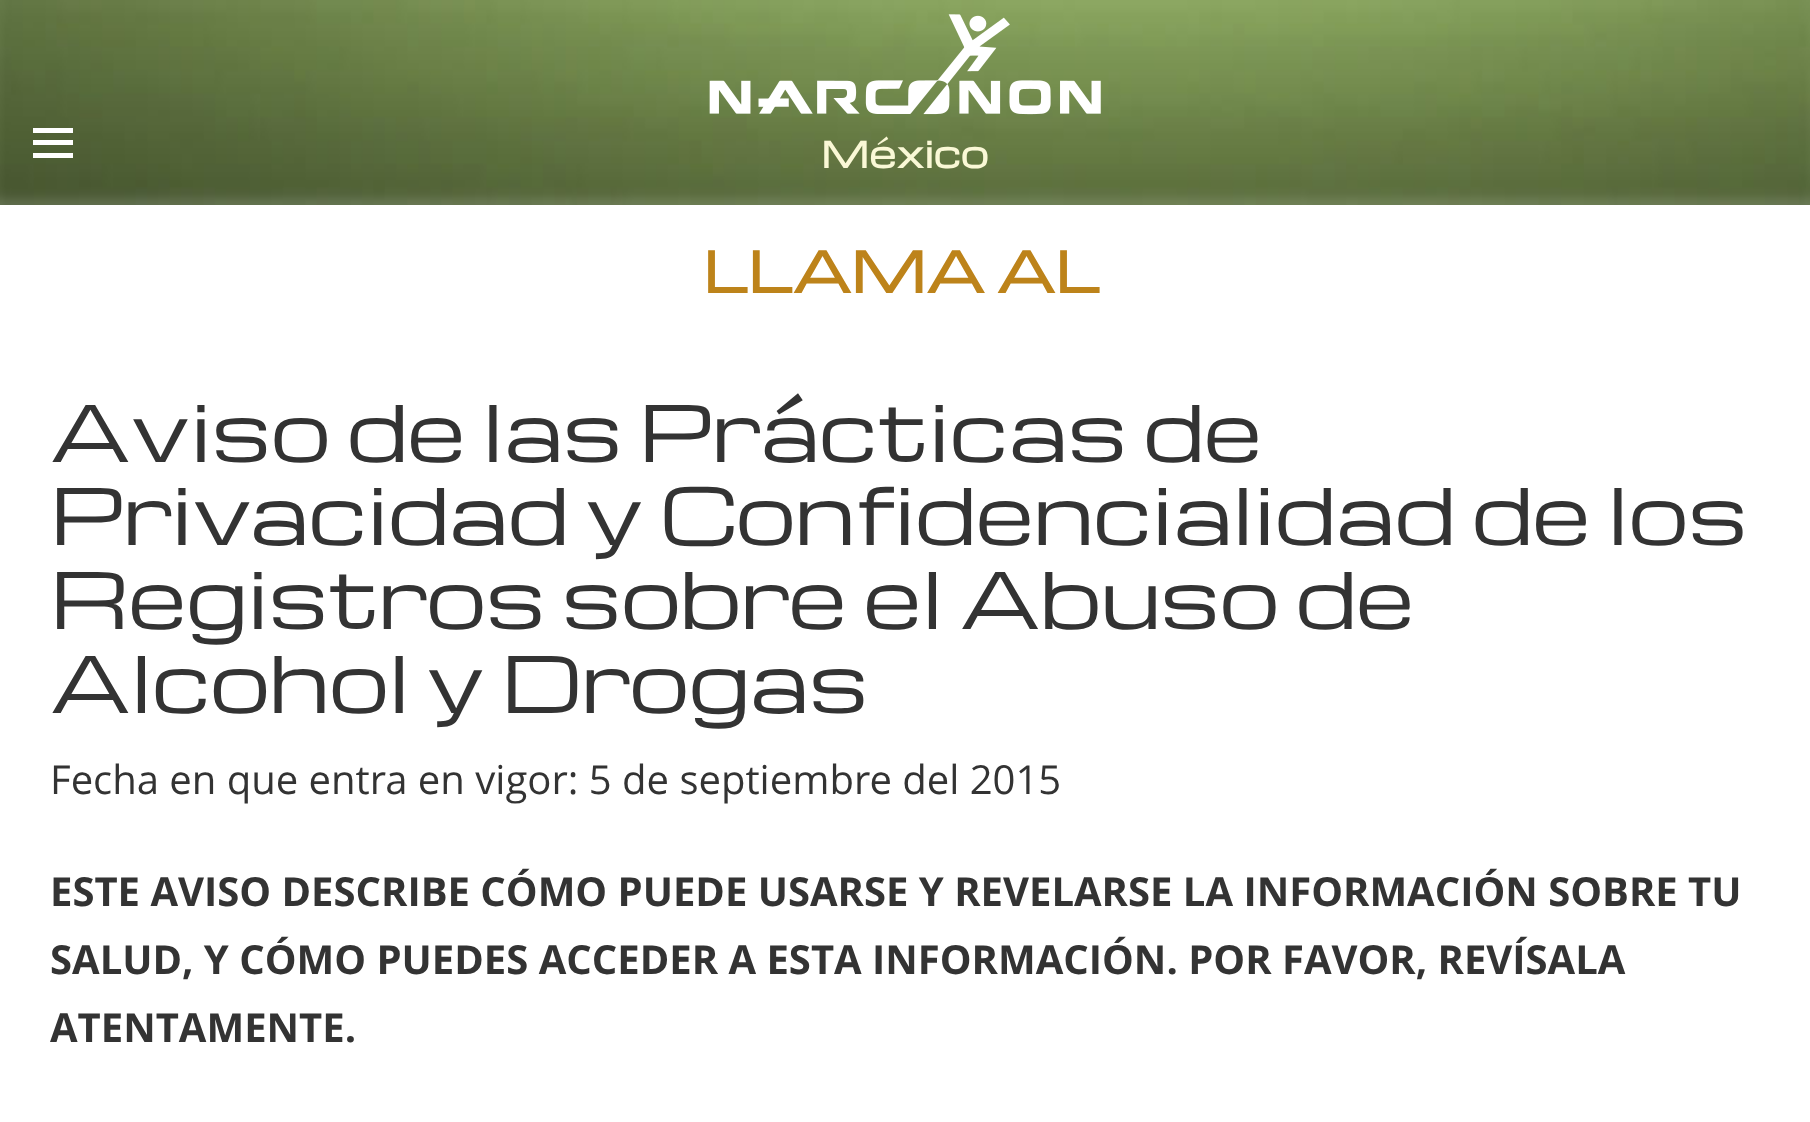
<?xml version="1.0" encoding="UTF-8"?>
<svg xmlns="http://www.w3.org/2000/svg" xmlns:xlink="http://www.w3.org/1999/xlink" width="1810" height="1122">
  <rect width="100%" height="100%" fill="#ffffff" />
  <image x="0" y="0" width="1810" height="205" xlink:href="image1.png" />
  <rect x="33" y="128" width="40" height="5" fill="#ffffff" />
  <rect x="33" y="140" width="40" height="5" fill="#ffffff" />
  <rect x="33" y="153" width="40" height="5" fill="#ffffff" />
  <image x="709" y="14" width="392" height="101" xlink:href="image2.png" />
  <text x="821" y="168" style="font-family: Michroma; font-size: 35px; font-weight: bold; fill: #faf8d6">México</text>
  <text x="703" y="293" style="font-family: Michroma; font-size: 55px; font-weight: bold; fill: #bd831a">LLAMA AL</text>
  <text x="50" y="462" style="font-family: Michroma; font-size: 76px; fill: #333333">Aviso de las Prácticas de</text>
  <text x="50" y="545" style="font-family: Michroma; font-size: 76px; fill: #333333">Privacidad y Confidencialidad de los</text>
  <text x="50" y="629" style="font-family: Michroma; font-size: 76px; fill: #333333">Registros sobre el Abuso de</text>
  <text x="50" y="713" style="font-family: Michroma; font-size: 76px; fill: #333333">Alcohol y Drogas</text>
  <text x="50" y="794" style="font-family: Open Sans; font-size: 40px; fill: #333333">Fecha en que entra en vigor: 5 de septiembre del 2015</text>
  <text x="50" y="906" style="font-family: Open Sans; font-size: 40px; font-weight: bold; fill: #333333">ESTE AVISO DESCRIBE CÓMO PUEDE USARSE Y REVELARSE LA INFORMACIÓN SOBRE TU</text>
  <text x="50" y="974" style="font-family: Open Sans; font-size: 40px; font-weight: bold; fill: #333333">SALUD, Y CÓMO PUEDES ACCEDER A ESTA INFORMACIÓN. POR FAVOR, REVÍSALA</text>
  <text x="50" y="1042" style="font-family: Open Sans; font-size: 40px; font-weight: bold; fill: #333333">ATENTAMENTE.</text>
</svg>
